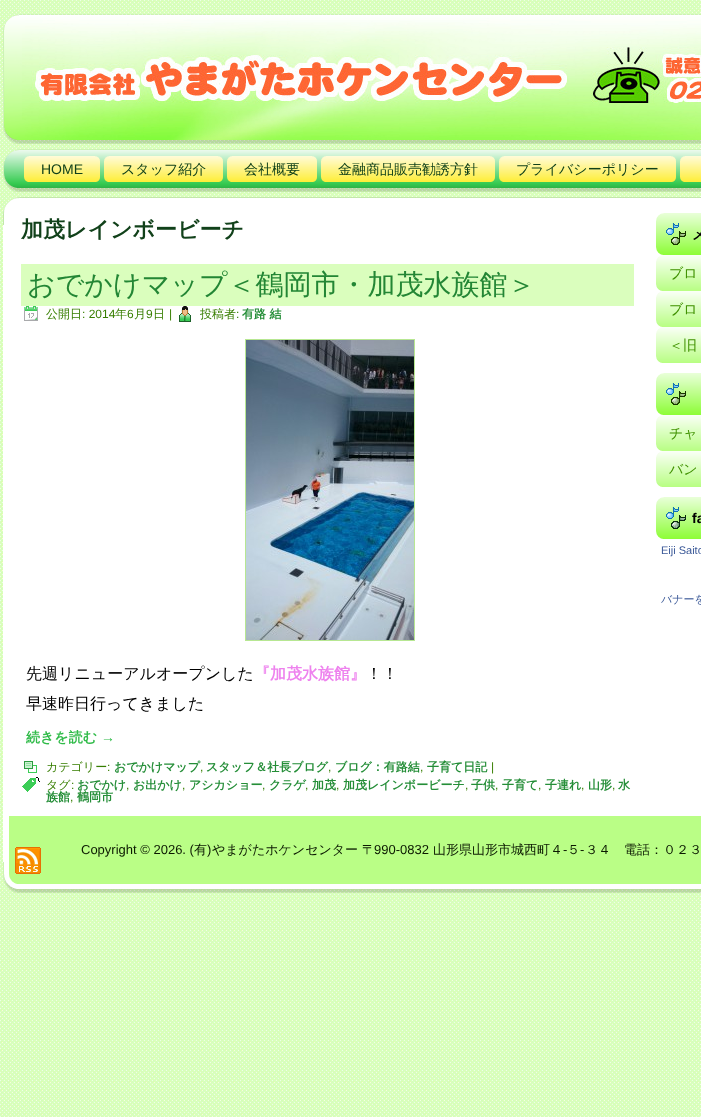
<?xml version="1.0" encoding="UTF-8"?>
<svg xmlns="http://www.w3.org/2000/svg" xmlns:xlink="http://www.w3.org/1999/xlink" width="701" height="1117">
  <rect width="100%" height="100%" fill="#ffffff" />
  <image x="0" y="0" width="701" height="1117" xlink:href="image1.png" />
  <image x="3" y="14" width="698" height="130" xlink:href="image2.png" />
  <image x="25" y="17" width="676" height="121" xlink:href="image3.png" />
  <image x="3" y="149" width="698" height="43" xlink:href="image4.png" />
  <image x="24" y="156" width="71" height="26" xlink:href="image5.png" />
  <image x="95" y="156" width="5" height="26" xlink:href="image6.png" />
  <image x="104" y="156" width="114" height="26" xlink:href="image7.png" />
  <image x="218" y="156" width="5" height="26" xlink:href="image6.png" />
  <image x="227" y="156" width="85" height="26" xlink:href="image8.png" />
  <image x="312" y="156" width="5" height="26" xlink:href="image6.png" />
  <image x="321" y="156" width="169" height="26" xlink:href="image9.png" />
  <image x="490" y="156" width="5" height="26" xlink:href="image6.png" />
  <image x="499" y="156" width="172" height="26" xlink:href="image10.png" />
  <image x="671" y="156" width="5" height="26" xlink:href="image6.png" />
  <image x="680" y="156" width="21" height="26" xlink:href="image11.png" />
  <image x="3" y="197" width="698" height="696" xlink:href="image12.png" />
  <image x="3" y="197" width="698" height="28" xlink:href="image13.png" />
  <rect x="3" y="225" width="698" height="637" fill="#ffffff" />
  <rect x="21" y="264" width="613" height="42" fill="#dafebd" />
  <image x="24" y="306" width="14" height="15" xlink:href="image14.png" />
  <image x="179" y="306" width="12" height="16" xlink:href="image15.png" />
  <rect x="245.5" y="339.5" width="169" height="301" fill="none" stroke="#b7e792" />
  <image x="246" y="340" width="168" height="300" xlink:href="image16.png" />
  <image x="24" y="761" width="13" height="12" xlink:href="image17.png" />
  <image x="22" y="777" width="18" height="15" xlink:href="image18.png" />
  <image x="656" y="213" width="45" height="42" xlink:href="image19.png" />
  <image x="656" y="255" width="45" height="36" xlink:href="image20.png" />
  <image x="656" y="291" width="45" height="36" xlink:href="image20.png" />
  <image x="656" y="327" width="45" height="36" xlink:href="image20.png" />
  <image x="656" y="373" width="45" height="42" xlink:href="image19.png" />
  <image x="656" y="415" width="45" height="36" xlink:href="image20.png" />
  <image x="656" y="451" width="45" height="36" xlink:href="image20.png" />
  <image x="656" y="497" width="45" height="42" xlink:href="image21.png" />
  <rect x="9" y="816" width="692" height="58" fill="#bafe86" />
  <image x="15" y="847" width="26" height="27" xlink:href="image22.png" />
  <image x="9" y="874" width="692" height="10" xlink:href="image23.png" />
  <text x="41" y="174" style="font-family: Liberation Sans; font-size: 14px; fill: #11411a">HOME</text>
  <text x="121" y="174" style="font-family: WenQuanYi Zen Hei; font-size: 14px; font-weight: 500; fill: #11411a">スタッフ紹介</text>
  <text x="244" y="174" style="font-family: WenQuanYi Zen Hei; font-size: 14px; font-weight: 500; fill: #11411a">会社概要</text>
  <text x="338" y="174" style="font-family: WenQuanYi Zen Hei; font-size: 14px; font-weight: 500; fill: #11411a">金融商品販売勧誘方針</text>
  <text x="516" y="174" style="font-family: WenQuanYi Zen Hei; font-size: 14px; font-weight: 500; fill: #11411a">プライバシーポリシー</text>
  <text x="21" y="237" style="font-family: WenQuanYi Zen Hei; font-size: 22px; font-weight: bold; fill: #11411a">加茂レインボービーチ</text>
  <text x="27" y="294" style="font-family: WenQuanYi Zen Hei; font-size: 28px; font-weight: 500; fill: #238635">おでかけマップ＜鶴岡市・加茂水族館＞</text>
  <text x="46" y="318" style="font-family: WenQuanYi Zen Hei; font-size: 12px; font-weight: 500; fill: #377e01">公開日</text>
  <text x="82" y="318" style="font-family: Liberation Sans; font-size: 12px; fill: #377e01">: 2014</text>
  <text x="115" y="318" style="font-family: WenQuanYi Zen Hei; font-size: 12px; font-weight: 500; fill: #377e01">年</text>
  <text x="127" y="318" style="font-family: Liberation Sans; font-size: 12px; fill: #377e01">6</text>
  <text x="134" y="318" style="font-family: WenQuanYi Zen Hei; font-size: 12px; font-weight: 500; fill: #377e01">月</text>
  <text x="146" y="318" style="font-family: Liberation Sans; font-size: 12px; fill: #377e01">9</text>
  <text x="153" y="318" style="font-family: WenQuanYi Zen Hei; font-size: 12px; font-weight: 500; fill: #377e01">日</text>
  <text x="169" y="318" style="font-family: Liberation Sans; font-size: 12px; fill: #377e01">|</text>
  <text x="200" y="318" style="font-family: WenQuanYi Zen Hei; font-size: 12px; font-weight: 500; fill: #377e01">投稿者</text>
  <text x="236" y="318" style="font-family: Liberation Sans; font-size: 12px; fill: #377e01">:</text>
  <text x="242" y="318" style="font-family: WenQuanYi Zen Hei; font-size: 12px; font-weight: bold; fill: #258e38">有路 結</text>
  <text x="26" y="679" style="font-family: WenQuanYi Zen Hei; font-size: 16px; font-weight: 500; fill: #000000">先週リニューアルオープンした</text>
  <text x="254" y="679" style="font-family: WenQuanYi Zen Hei; font-size: 16px; font-weight: bold; fill: #ee82ee">『加茂水族館』</text>
  <text x="366" y="679" style="font-family: WenQuanYi Zen Hei; font-size: 16px; font-weight: 500; fill: #000000">！！</text>
  <text x="26" y="709" style="font-family: WenQuanYi Zen Hei; font-size: 16px; font-weight: 500; fill: #000000">早速昨日行ってきました</text>
  <text x="26" y="742" style="font-family: WenQuanYi Zen Hei; font-size: 14px; font-weight: bold; fill: #30bb49">続きを読む</text>
  <text x="101" y="742" style="font-family: Liberation Sans; font-size: 14px; font-weight: bold; fill: #30bb49">→</text>
  <text x="46" y="771" style="font-family: WenQuanYi Zen Hei; font-size: 12px; font-weight: 500; fill: #377e01">カテゴリー</text>
  <text x="107" y="771" style="font-family: Liberation Sans; font-size: 12px; fill: #377e01">:</text>
  <text x="114" y="771" style="font-family: WenQuanYi Zen Hei; font-size: 12px; font-weight: bold; fill: #258e38">おでかけマップ</text>
  <text x="200" y="771" style="font-family: Liberation Sans; font-size: 12px; fill: #377e01">,</text>
  <text x="206" y="771" style="font-family: WenQuanYi Zen Hei; font-size: 12px; font-weight: bold; fill: #258e38">スタッフ＆社長ブログ</text>
  <text x="328" y="771" style="font-family: Liberation Sans; font-size: 12px; fill: #377e01">,</text>
  <text x="335" y="771" style="font-family: WenQuanYi Zen Hei; font-size: 12px; font-weight: bold; fill: #258e38">ブログ：有路結</text>
  <text x="420" y="771" style="font-family: Liberation Sans; font-size: 12px; fill: #377e01">,</text>
  <text x="427" y="771" style="font-family: WenQuanYi Zen Hei; font-size: 12px; font-weight: bold; fill: #258e38">子育て日記</text>
  <text x="491" y="771" style="font-family: Liberation Sans; font-size: 12px; fill: #377e01">|</text>
  <text x="46" y="789" style="font-family: WenQuanYi Zen Hei; font-size: 12px; font-weight: 500; fill: #377e01">タグ</text>
  <text x="71" y="789" style="font-family: Liberation Sans; font-size: 12px; fill: #377e01">:</text>
  <text x="77" y="789" style="font-family: WenQuanYi Zen Hei; font-size: 12px; font-weight: bold; fill: #258e38">おでかけ</text>
  <text x="126" y="789" style="font-family: Liberation Sans; font-size: 12px; fill: #377e01">,</text>
  <text x="133" y="789" style="font-family: WenQuanYi Zen Hei; font-size: 12px; font-weight: bold; fill: #258e38">お出かけ</text>
  <text x="182" y="789" style="font-family: Liberation Sans; font-size: 12px; fill: #377e01">,</text>
  <text x="189" y="789" style="font-family: WenQuanYi Zen Hei; font-size: 12px; font-weight: bold; fill: #258e38">アシカショー</text>
  <text x="262" y="789" style="font-family: Liberation Sans; font-size: 12px; fill: #377e01">,</text>
  <text x="269" y="789" style="font-family: WenQuanYi Zen Hei; font-size: 12px; font-weight: bold; fill: #258e38">クラゲ</text>
  <text x="305" y="789" style="font-family: Liberation Sans; font-size: 12px; fill: #377e01">,</text>
  <text x="312" y="789" style="font-family: WenQuanYi Zen Hei; font-size: 12px; font-weight: bold; fill: #258e38">加茂</text>
  <text x="336" y="789" style="font-family: Liberation Sans; font-size: 12px; fill: #377e01">,</text>
  <text x="343" y="789" style="font-family: WenQuanYi Zen Hei; font-size: 12px; font-weight: bold; fill: #258e38">加茂レインボービーチ</text>
  <text x="465" y="789" style="font-family: Liberation Sans; font-size: 12px; fill: #377e01">,</text>
  <text x="471" y="789" style="font-family: WenQuanYi Zen Hei; font-size: 12px; font-weight: bold; fill: #258e38">子供</text>
  <text x="495" y="789" style="font-family: Liberation Sans; font-size: 12px; fill: #377e01">,</text>
  <text x="502" y="789" style="font-family: WenQuanYi Zen Hei; font-size: 12px; font-weight: bold; fill: #258e38">子育て</text>
  <text x="538" y="789" style="font-family: Liberation Sans; font-size: 12px; fill: #377e01">,</text>
  <text x="545" y="789" style="font-family: WenQuanYi Zen Hei; font-size: 12px; font-weight: bold; fill: #258e38">子連れ</text>
  <text x="581" y="789" style="font-family: Liberation Sans; font-size: 12px; fill: #377e01">,</text>
  <text x="588" y="789" style="font-family: WenQuanYi Zen Hei; font-size: 12px; font-weight: bold; fill: #258e38">山形</text>
  <text x="612" y="789" style="font-family: Liberation Sans; font-size: 12px; fill: #377e01">,</text>
  <text x="618" y="789" style="font-family: WenQuanYi Zen Hei; font-size: 12px; font-weight: bold; fill: #258e38">水</text>
  <text x="46" y="801" style="font-family: WenQuanYi Zen Hei; font-size: 12px; font-weight: bold; fill: #258e38">族館</text>
  <text x="70" y="801" style="font-family: Liberation Sans; font-size: 12px; fill: #377e01">,</text>
  <text x="77" y="801" style="font-family: WenQuanYi Zen Hei; font-size: 12px; font-weight: bold; fill: #258e38">鶴岡市</text>
  <text x="692" y="239" style="font-family: WenQuanYi Zen Hei; font-size: 14px; font-weight: bold; fill: #000000">メ</text>
  <text x="669" y="278" style="font-family: WenQuanYi Zen Hei; font-size: 14px; font-weight: 500; fill: #409201">ブロ</text>
  <text x="669" y="314" style="font-family: WenQuanYi Zen Hei; font-size: 14px; font-weight: 500; fill: #409201">ブロ</text>
  <text x="669" y="350" style="font-family: WenQuanYi Zen Hei; font-size: 14px; font-weight: 500; fill: #409201">＜旧</text>
  <text x="669" y="438" style="font-family: WenQuanYi Zen Hei; font-size: 14px; font-weight: 500; fill: #409201">チャ</text>
  <text x="669" y="474" style="font-family: WenQuanYi Zen Hei; font-size: 14px; font-weight: 500; fill: #409201">バン</text>
  <text x="692" y="523" style="font-family: Liberation Sans; font-size: 14px; font-weight: bold; fill: #000000">fa</text>
  <text x="661" y="554" style="font-family: Liberation Sans; font-size: 11px; fill: #3b5998">Eiji Saito</text>
  <text x="661" y="603" style="font-family: WenQuanYi Zen Hei; font-size: 11px; font-weight: 500; fill: #3b5998">バナーを</text>
  <text x="81" y="854" style="font-family: Liberation Sans; font-size: 13px; fill: #0b1900">Copyright © 2026. (</text>
  <text x="194" y="854" style="font-family: WenQuanYi Zen Hei; font-size: 13px; font-weight: 500; fill: #0b1900">有</text>
  <text x="207" y="854" style="font-family: Liberation Sans; font-size: 13px; fill: #0b1900">)</text>
  <text x="212" y="854" style="font-family: WenQuanYi Zen Hei; font-size: 13px; font-weight: 500; fill: #0b1900">やまがたホケンセンター 〒</text>
  <text x="374" y="854" style="font-family: Liberation Sans; font-size: 13px; fill: #0b1900">990-0832</text>
  <text x="433" y="854" style="font-family: WenQuanYi Zen Hei; font-size: 13px; font-weight: 500; fill: #0b1900">山形県山形市城西町４</text>
  <text x="563" y="854" style="font-family: Liberation Sans; font-size: 13px; fill: #0b1900">-</text>
  <text x="567" y="854" style="font-family: WenQuanYi Zen Hei; font-size: 13px; font-weight: 500; fill: #0b1900">５</text>
  <text x="580" y="854" style="font-family: Liberation Sans; font-size: 13px; fill: #0b1900">-</text>
  <text x="585" y="854" style="font-family: WenQuanYi Zen Hei; font-size: 13px; font-weight: 500; fill: #0b1900">３４　電話：０２３</text>
</svg>
